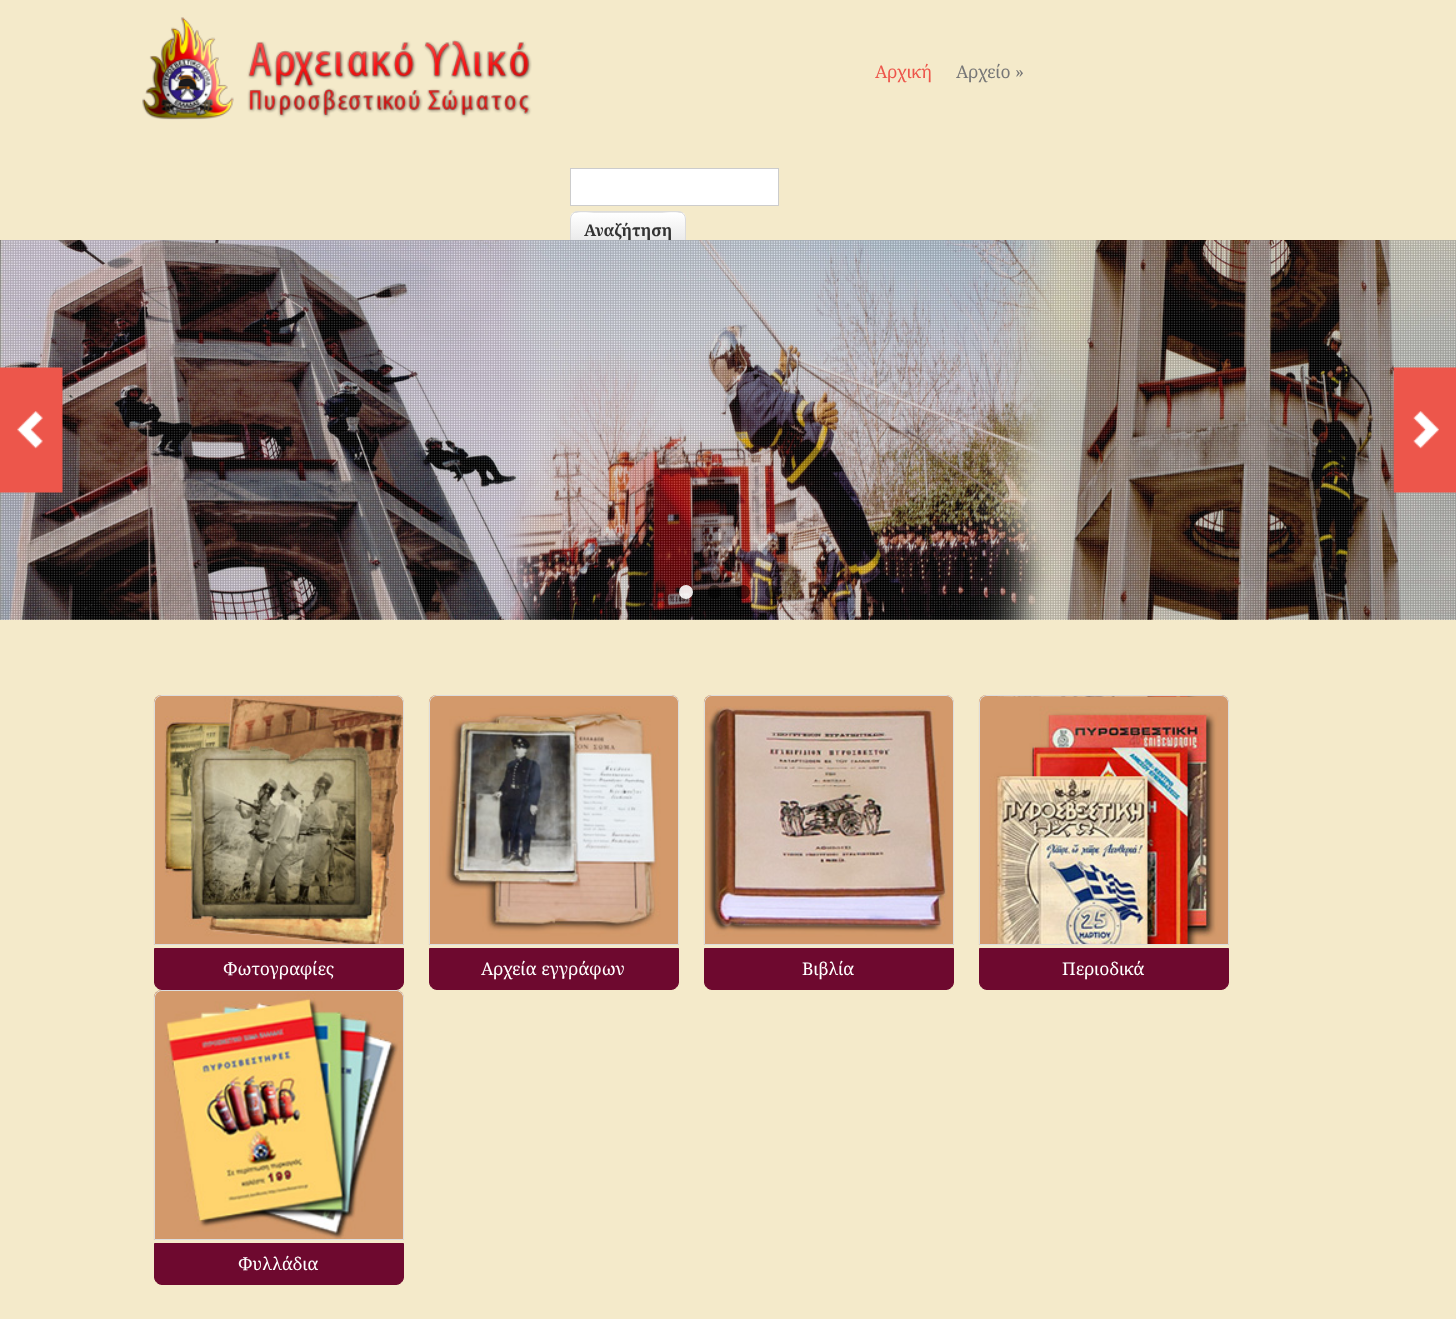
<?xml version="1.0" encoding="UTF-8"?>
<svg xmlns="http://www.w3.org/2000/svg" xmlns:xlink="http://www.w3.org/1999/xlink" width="1456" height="1319">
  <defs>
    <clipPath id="clip1"><rect x="570" y="211" width="116" height="40" rx="8" /></clipPath>
    <linearGradient id="g1" gradientUnits="userSpaceOnUse" x1="628" y1="175" x2="628" y2="213"><stop offset="0" stop-color="#ffffff" /><stop offset="1" stop-color="#e3e3e3" /></linearGradient>
    <linearGradient id="g2" gradientUnits="userSpaceOnUse" x1="628" y1="213" x2="628" y2="250"><stop offset="0" stop-color="#ffffff" /><stop offset="1" stop-color="#e3e3e3" /></linearGradient>
  </defs>
  <rect width="100%" height="100%" fill="#f4eaca" />
  <image x="142" y="17" width="390" height="103" xlink:href="image1.png" />
  <rect x="570.5" y="168.5" width="208" height="37" fill="#ffffff" stroke="#cccccc" />
  <g clip-path="url(#clip1)">
    <rect x="570" y="211" width="116" height="2" fill="url(#g1)" />
    <rect x="570" y="213" width="116" height="27" fill="url(#g2)" />
  </g>
  <path d="M 578 214 h 101 c 3 0 6 3 6 6 c 0 -11 -17 -7 -23 -7 h -68 c -6 0 -23 -4 -23 7 c 0 -3 3 -6 7 -6 z" fill="#ffffff" />
  <rect x="570.5" y="211.5" width="115" height="39" rx="7.5" fill="none" stroke="#dbdbdb" />
  <image x="0" y="240" width="1456" height="380" xlink:href="image2.png" />
  <image x="0" y="240" width="1456" height="380" xlink:href="image3.png" />
  <image x="0" y="367" width="63" height="126" xlink:href="image4.png" />
  <image x="1393" y="367" width="63" height="126" xlink:href="image5.png" />
  <circle cx="686" cy="592" r="7" fill="#ffffff" fill-opacity="0.9" />
  <rect x="708" y="585" width="13" height="14" rx="6.5" fill="#000000" fill-opacity="0.5" />
  <circle cx="743" cy="592" r="7" fill="#000000" fill-opacity="0.5" />
  <circle cx="772" cy="592" r="7" fill="#000000" fill-opacity="0.5" />
  <image x="153" y="695" width="251" height="250" xlink:href="image6.png" />
  <path d="M 162 695.5 h 234 c 4 0 7.5 3.5 7.5 7.5 v 241.5 h -249 v -241.5 c 0 -4 3.5 -7.5 7.5 -7.5 z" fill="none" stroke="#dddddd" />
  <path d="M 154.5 948.5 h 249 v 33.5 c 0 4 -3.5 7.5 -7.5 7.5 h -234 c -4 0 -7.5 -3.5 -7.5 -7.5 z" fill="#6e092f" stroke="#6e092f" />
  <image x="428" y="695" width="251" height="250" xlink:href="image7.png" />
  <path d="M 437 695.5 h 234 c 4 0 7.5 3.5 7.5 7.5 v 241.5 h -249 v -241.5 c 0 -4 3.5 -7.5 7.5 -7.5 z" fill="none" stroke="#dddddd" />
  <path d="M 429.5 948.5 h 249 v 33.5 c 0 4 -3.5 7.5 -7.5 7.5 h -234 c -4 0 -7.5 -3.5 -7.5 -7.5 z" fill="#6e092f" stroke="#6e092f" />
  <image x="703" y="695" width="251" height="250" xlink:href="image8.png" />
  <path d="M 712 695.5 h 234 c 4 0 7.5 3.5 7.5 7.5 v 241.5 h -249 v -241.5 c 0 -4 3.5 -7.5 7.5 -7.5 z" fill="none" stroke="#dddddd" />
  <path d="M 704.5 948.5 h 249 v 33.5 c 0 4 -3.5 7.5 -7.5 7.5 h -234 c -4 0 -7.5 -3.5 -7.5 -7.5 z" fill="#6e092f" stroke="#6e092f" />
  <image x="978" y="695" width="251" height="250" xlink:href="image9.png" />
  <path d="M 987 695.5 h 234 c 4 0 7.5 3.5 7.5 7.5 v 241.5 h -249 v -241.5 c 0 -4 3.5 -7.5 7.5 -7.5 z" fill="none" stroke="#dddddd" />
  <path d="M 979.5 948.5 h 249 v 33.5 c 0 4 -3.5 7.5 -7.5 7.5 h -234 c -4 0 -7.5 -3.5 -7.5 -7.5 z" fill="#6e092f" stroke="#6e092f" />
  <image x="153" y="990" width="251" height="250" xlink:href="image10.png" />
  <path d="M 162 990.5 h 234 c 4 0 7.5 3.5 7.5 7.5 v 241.5 h -249 v -241.5 c 0 -4 3.5 -7.5 7.5 -7.5 z" fill="none" stroke="#dddddd" />
  <path d="M 154.5 1243.5 h 249 v 33.5 c 0 4 -3.5 7.5 -7.5 7.5 h -234 c -4 0 -7.5 -3.5 -7.5 -7.5 z" fill="#6e092f" stroke="#6e092f" />
  <text x="875" y="78" style="font-family: Noto Serif; font-size: 17.5px; fill: #ed564b">Αρχική</text>
  <text x="956" y="78" style="font-family: Noto Serif; font-size: 17.5px; fill: #777777">Αρχείο »</text>
  <text x="584" y="236" style="font-family: Noto Serif; font-size: 16.25px; font-weight: bold; fill: #333333">Αναζήτηση</text>
  <text x="223" y="975" style="font-family: Noto Serif; font-size: 17.5px; fill: #ffffff">Φωτογραφίες</text>
  <text x="481" y="975" style="font-family: Noto Serif; font-size: 17.5px; fill: #ffffff">Αρχεία εγγράφων</text>
  <text x="802" y="975" style="font-family: Noto Serif; font-size: 17.5px; fill: #ffffff">Βιβλία</text>
  <text x="1062" y="975" style="font-family: Noto Serif; font-size: 17.5px; fill: #ffffff">Περιοδικά</text>
  <text x="238" y="1270" style="font-family: Noto Serif; font-size: 17.5px; fill: #ffffff">Φυλλάδια</text>
</svg>
